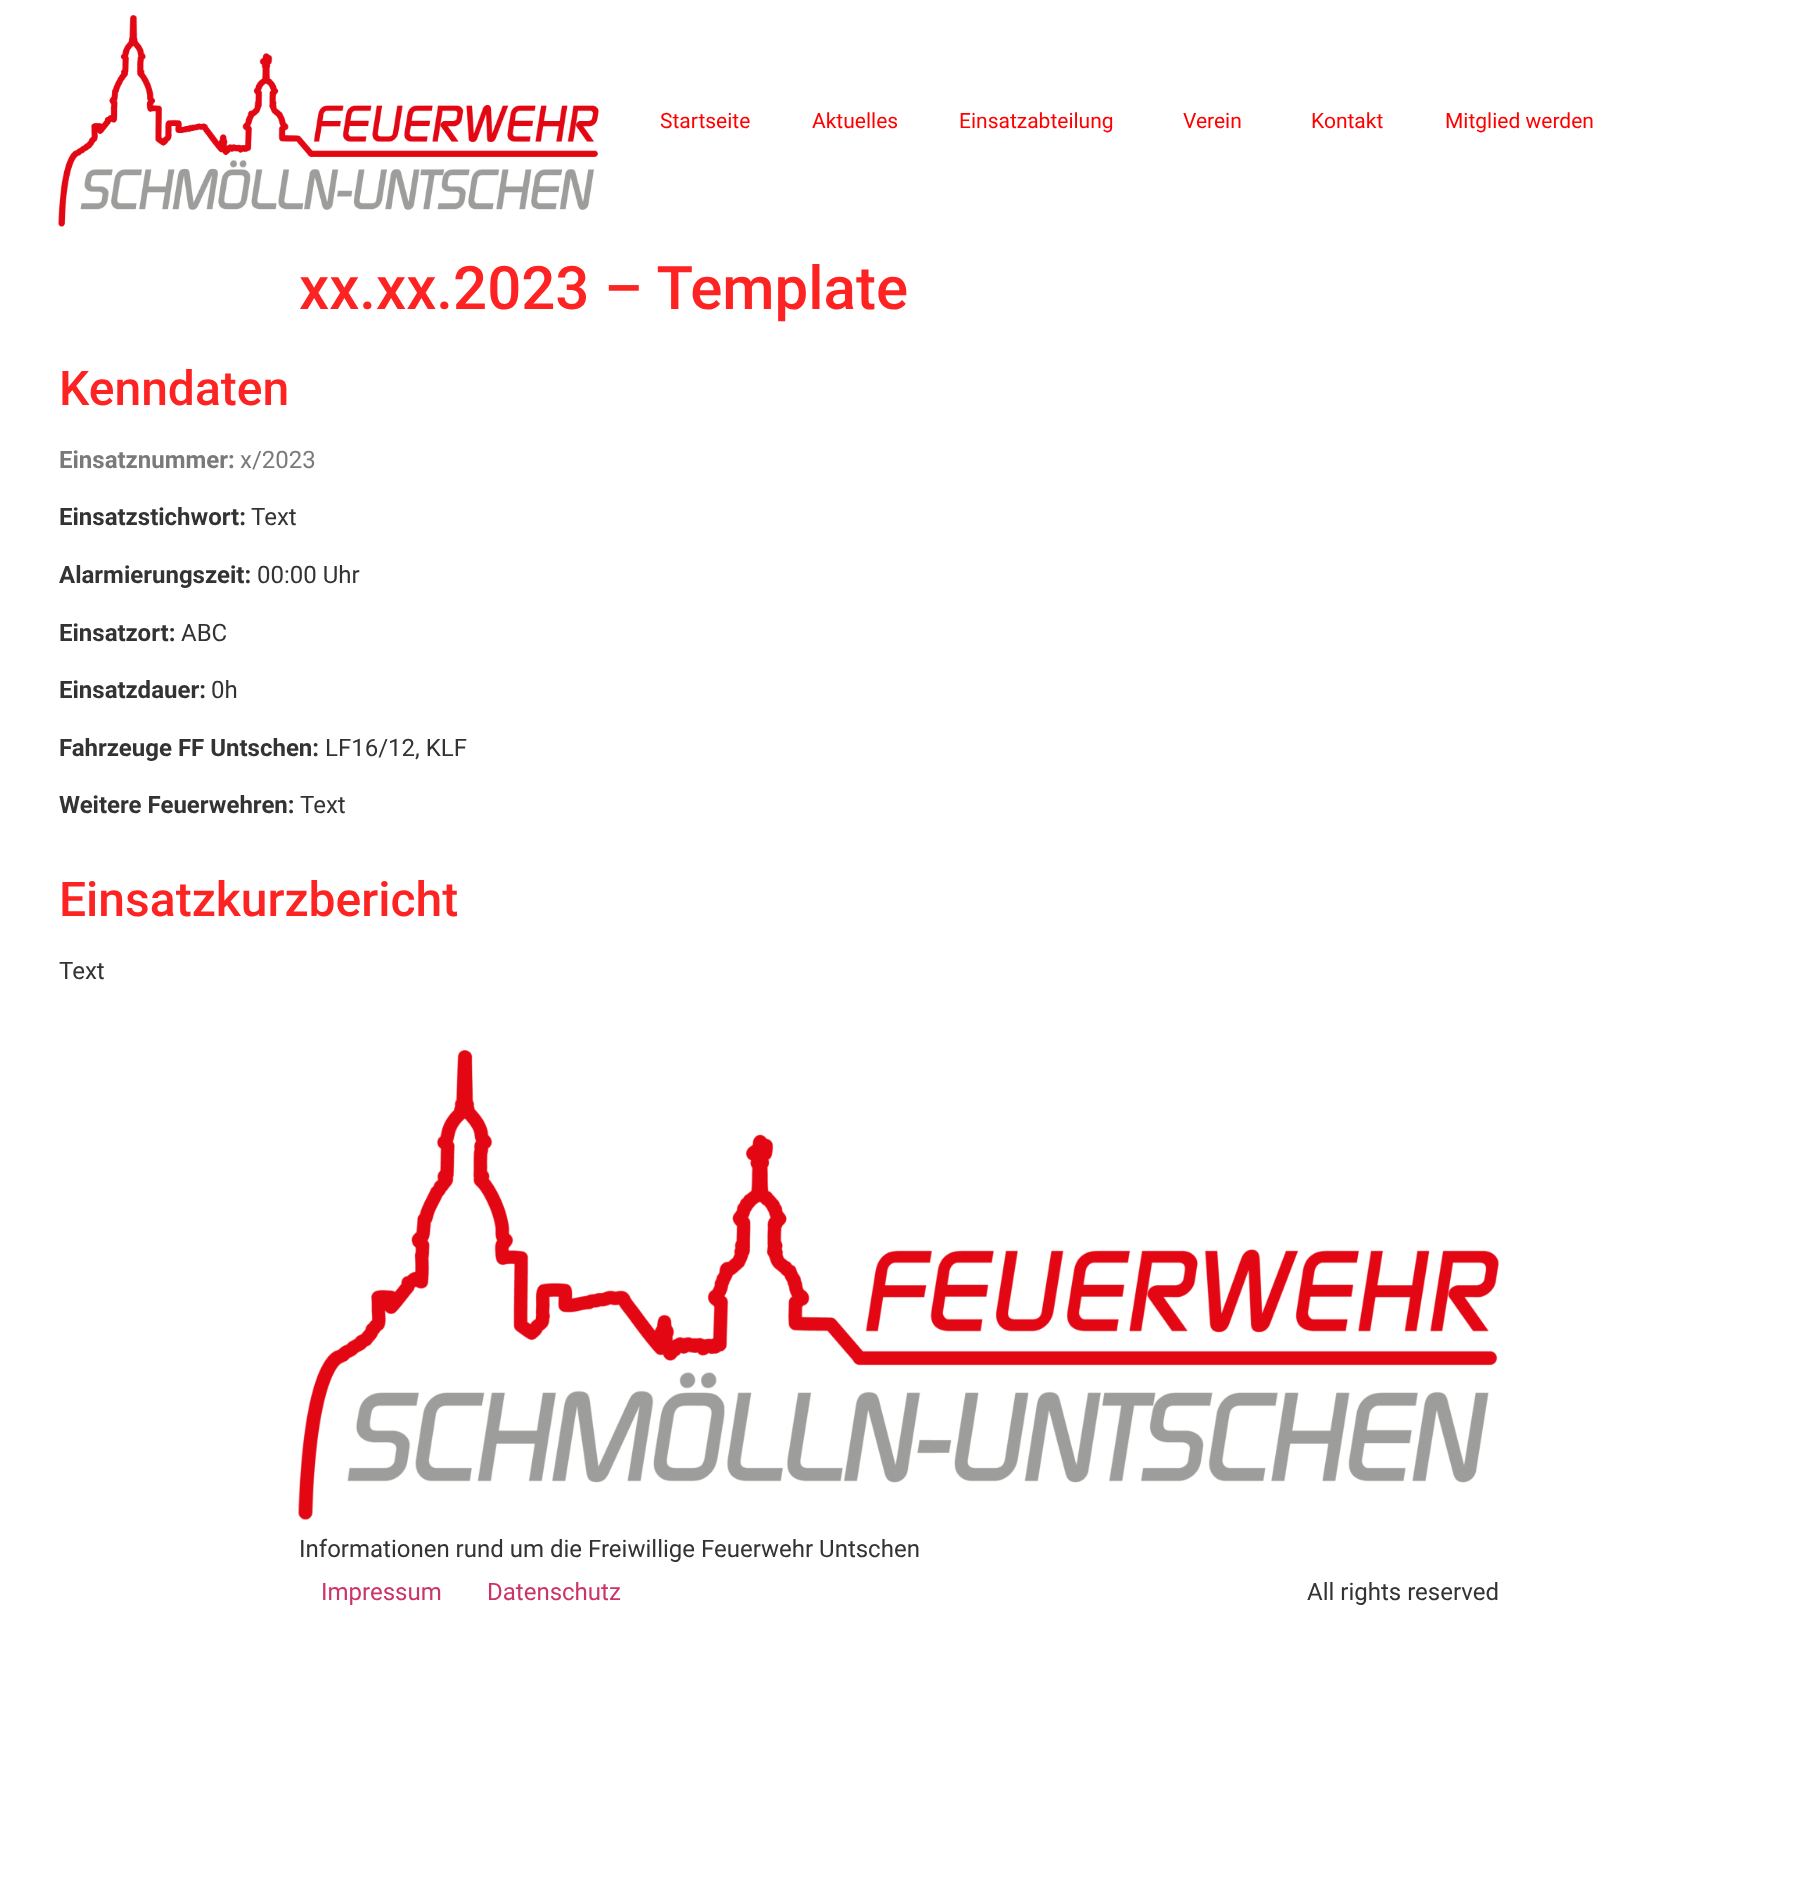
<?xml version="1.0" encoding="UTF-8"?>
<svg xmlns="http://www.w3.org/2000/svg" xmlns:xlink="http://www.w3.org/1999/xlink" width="1796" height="1889">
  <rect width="100%" height="100%" fill="#ffffff" />
  <image x="58" y="15" width="541" height="212" xlink:href="image1.png" />
  <image x="298" y="1050" width="1201" height="470" xlink:href="image2.png" />
  <text x="660" y="128" style="font-family: Roboto; font-size: 21px; fill: #ff0000">Startseite</text>
  <text x="812" y="128" style="font-family: Roboto; font-size: 21px; fill: #ff0000">Aktuelles</text>
  <text x="959" y="128" style="font-family: Roboto; font-size: 21px; fill: #ff0000">Einsatzabteilung</text>
  <text x="1183" y="128" style="font-family: Roboto; font-size: 21px; fill: #ff0000">Verein</text>
  <text x="1311" y="128" style="font-family: Roboto; font-size: 21px; fill: #ff0000">Kontakt</text>
  <text x="1445" y="128" style="font-family: Roboto; font-size: 21px; fill: #ff0000">Mitglied werden</text>
  <text x="299" y="309" style="font-family: Roboto; font-size: 60px; font-weight: 500; fill: #fd2323">xx.xx.2023 – Template</text>
  <text x="59" y="405" style="font-family: Roboto; font-size: 48px; font-weight: 500; fill: #fd2323">Kenndaten</text>
  <text x="59" y="468" style="font-family: Roboto; font-size: 24px; font-weight: bold; fill: #7a7a7a">Einsatznummer:</text>
  <text x="240" y="468" style="font-family: Roboto; font-size: 24px; fill: #7a7a7a">x/2023</text>
  <text x="59" y="525" style="font-family: Roboto; font-size: 24px; font-weight: bold; fill: #333333">Einsatzstichwort:</text>
  <text x="251" y="525" style="font-family: Roboto; font-size: 24px; fill: #333333">Text</text>
  <text x="59" y="583" style="font-family: Roboto; font-size: 24px; font-weight: bold; fill: #333333">Alarmierungszeit:</text>
  <text x="257" y="583" style="font-family: Roboto; font-size: 24px; fill: #333333">00:00 Uhr</text>
  <text x="59" y="641" style="font-family: Roboto; font-size: 24px; font-weight: bold; fill: #333333">Einsatzort:</text>
  <text x="181" y="641" style="font-family: Roboto; font-size: 24px; fill: #333333">ABC</text>
  <text x="59" y="698" style="font-family: Roboto; font-size: 24px; font-weight: bold; fill: #333333">Einsatzdauer:</text>
  <text x="211" y="698" style="font-family: Roboto; font-size: 24px; fill: #333333">0h</text>
  <text x="59" y="756" style="font-family: Roboto; font-size: 24px; font-weight: bold; fill: #333333">Fahrzeuge FF Untschen:</text>
  <text x="325" y="756" style="font-family: Roboto; font-size: 24px; fill: #333333">LF16/12, KLF</text>
  <text x="59" y="813" style="font-family: Roboto; font-size: 24px; font-weight: bold; fill: #333333">Weitere Feuerwehren:</text>
  <text x="300" y="813" style="font-family: Roboto; font-size: 24px; fill: #333333">Text</text>
  <text x="59" y="916" style="font-family: Roboto; font-size: 48px; font-weight: 500; fill: #fd2323">Einsatzkurzbericht</text>
  <text x="59" y="979" style="font-family: Roboto; font-size: 24px; fill: #333333">Text</text>
  <text x="299" y="1557" style="font-family: Roboto; font-size: 24px; fill: #333333">Informationen rund um die Freiwillige Feuerwehr Untschen</text>
  <text x="321" y="1600" style="font-family: Roboto; font-size: 24px; fill: #cc3366">Impressum</text>
  <text x="487" y="1600" style="font-family: Roboto; font-size: 24px; fill: #cc3366">Datenschutz</text>
  <text x="1307" y="1600" style="font-family: Roboto; font-size: 24px; fill: #333333">All rights reserved</text>
</svg>
